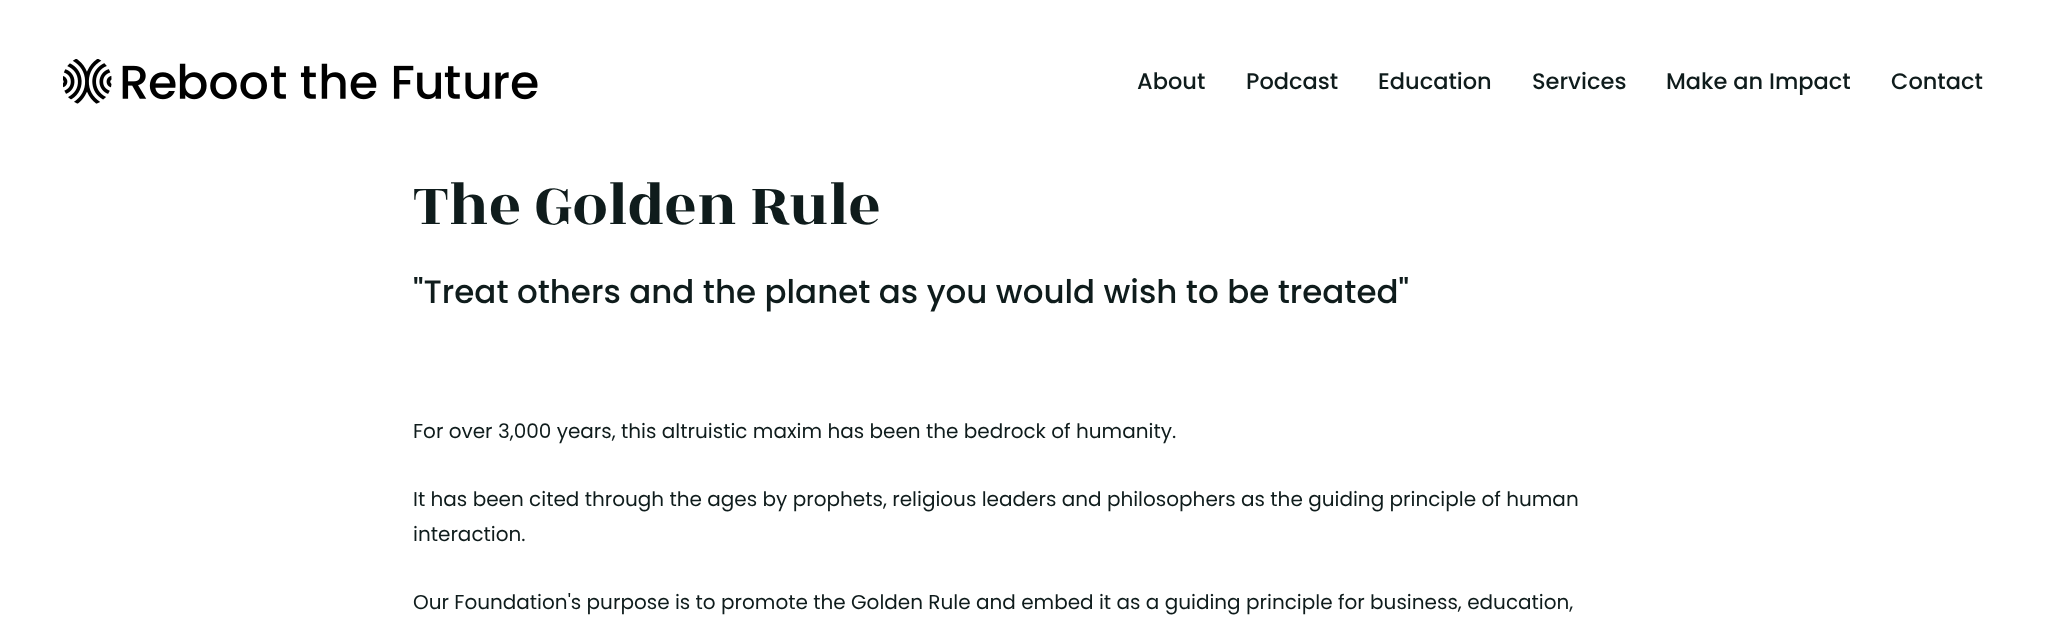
<?xml version="1.0" encoding="UTF-8"?>
<svg xmlns="http://www.w3.org/2000/svg" xmlns:xlink="http://www.w3.org/1999/xlink" width="2054" height="636">
  <rect width="100%" height="100%" fill="#ffffff" />
  <image x="63" y="59" width="475" height="45" xlink:href="image1.png" />
  <text x="1137" y="89" style="font-family: Poppins; font-size: 22.5px; font-weight: 500; fill: #0f1c1c">About</text>
  <text x="1246" y="89" style="font-family: Poppins; font-size: 22.5px; font-weight: 500; fill: #0f1c1c">Podcast</text>
  <text x="1378" y="89" style="font-family: Poppins; font-size: 22.5px; font-weight: 500; fill: #0f1c1c">Education</text>
  <text x="1532" y="89" style="font-family: Poppins; font-size: 22.5px; font-weight: 500; fill: #0f1c1c">Services</text>
  <text x="1666" y="89" style="font-family: Poppins; font-size: 22.5px; font-weight: 500; fill: #0f1c1c">Make an Impact</text>
  <text x="1891" y="89" style="font-family: Poppins; font-size: 22.5px; font-weight: 500; fill: #0f1c1c">Contact</text>
  <text x="413" y="224" style="font-family: Rozha One; font-size: 62.5px; fill: #0f1c1c">The Golden Rule</text>
  <text x="413" y="303" style="font-family: Poppins; font-size: 32.5px; font-weight: 500; fill: #0f1c1c">"Treat others and the planet as you would wish to be treated"</text>
  <text x="413" y="438" style="font-family: Poppins; font-size: 20px; fill: #0f1c1c">For over 3,000 years, this altruistic maxim has been the bedrock of humanity.</text>
  <text x="413" y="506" style="font-family: Poppins; font-size: 20px; fill: #0f1c1c">It has been cited through the ages by prophets, religious leaders and philosophers as the guiding principle of human</text>
  <text x="413" y="541" style="font-family: Poppins; font-size: 20px; fill: #0f1c1c">interaction.</text>
  <text x="413" y="609" style="font-family: Poppins; font-size: 20px; fill: #0f1c1c">Our Foundation's purpose is to promote the Golden Rule and embed it as a guiding principle for business, education,</text>
</svg>
